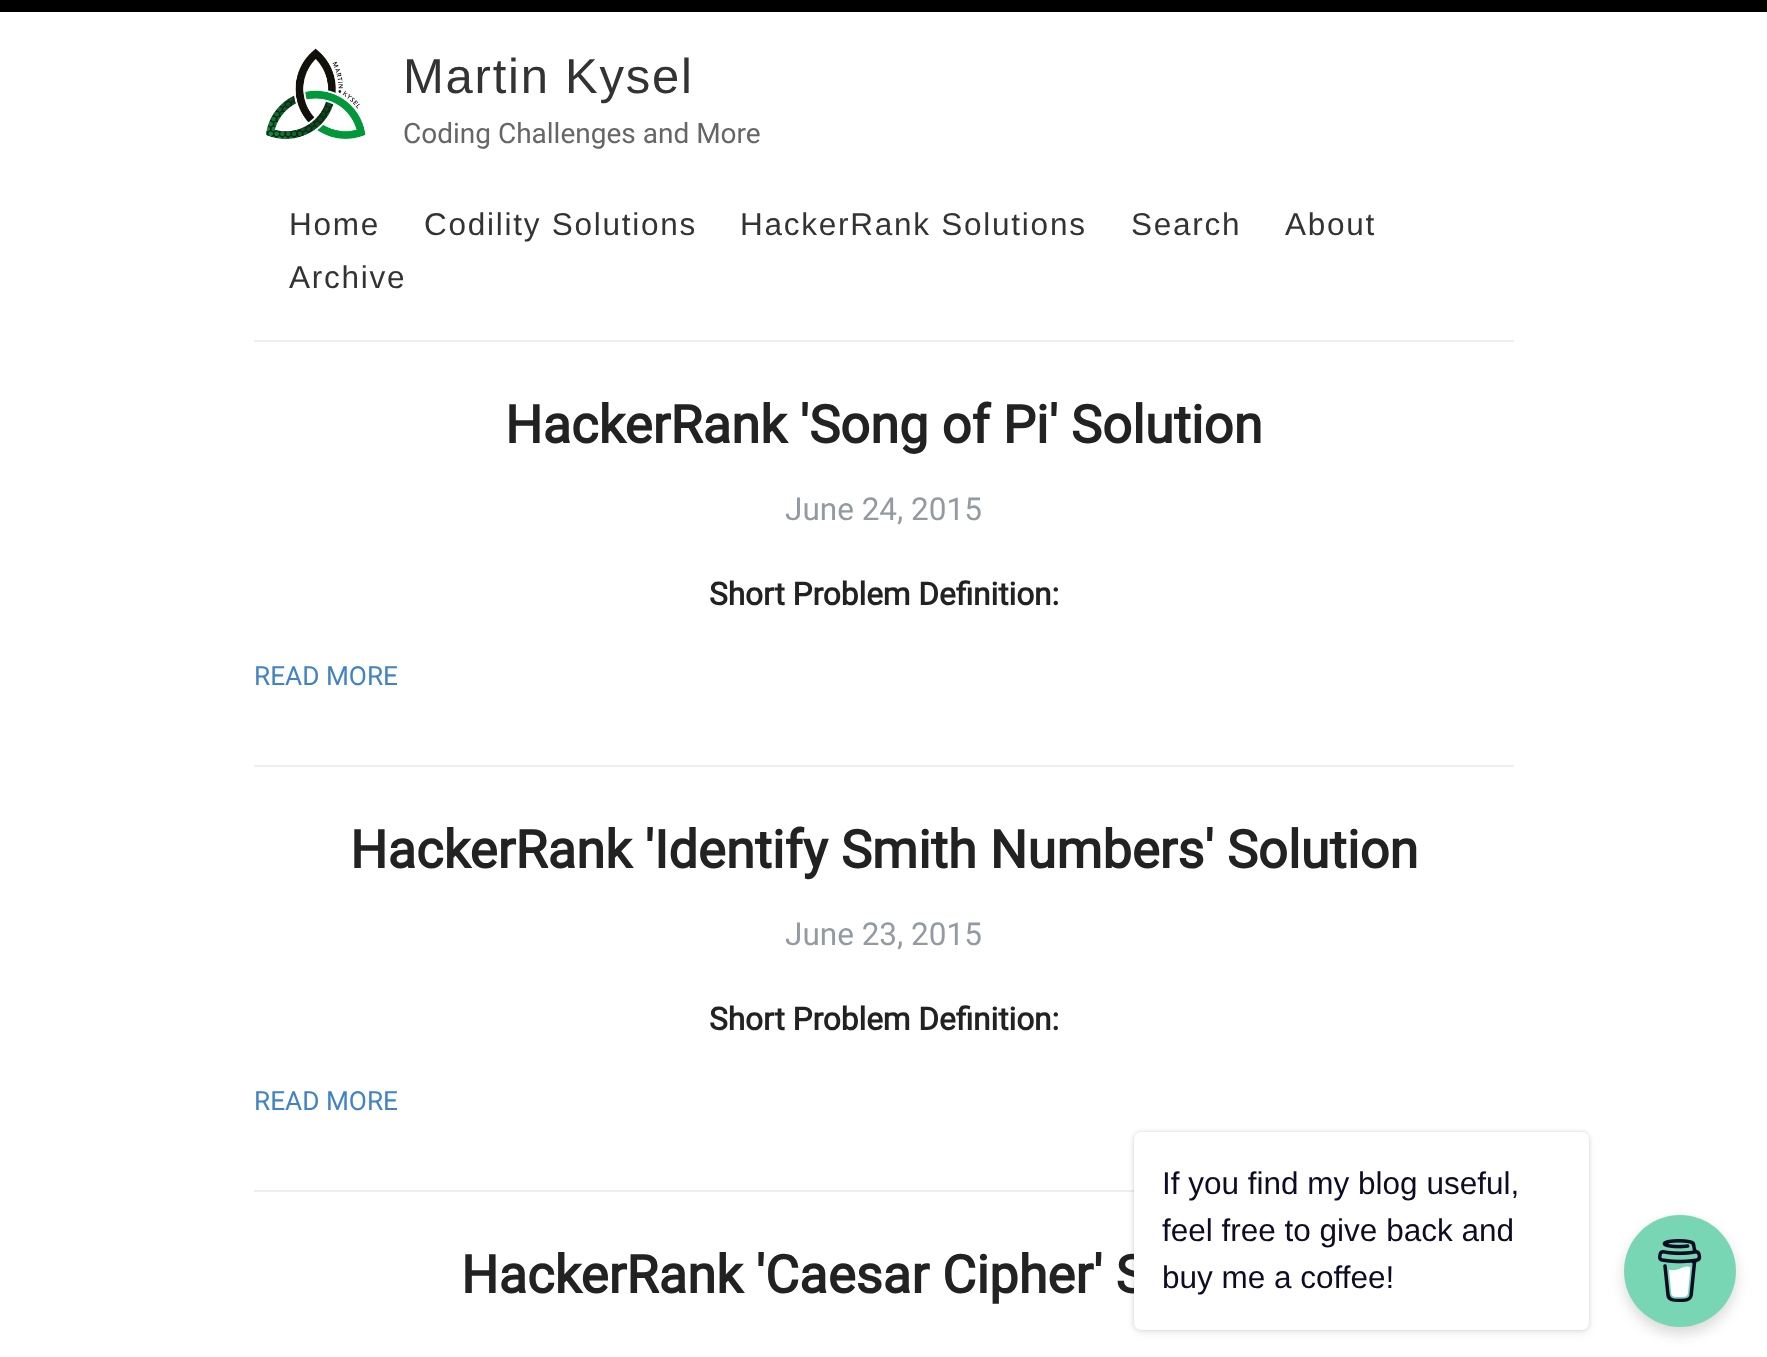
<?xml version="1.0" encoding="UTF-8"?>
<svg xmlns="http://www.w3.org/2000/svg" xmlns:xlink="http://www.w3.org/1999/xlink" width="1767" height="1357">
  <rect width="100%" height="100%" fill="#ffffff" />
  <rect width="1767" height="12" fill="#000000" />
  <rect x="254" y="340" width="1260" height="2" fill="#eeeeee" />
  <image x="265" y="48" width="101" height="91" xlink:href="image1.png" />
  <rect x="254" y="765" width="1260" height="2" fill="#eeeeee" />
  <rect x="254" y="1190" width="880" height="2" fill="#eeeeee" />
  <rect x="1134" y="1132" width="455" height="198" rx="7" fill="#000000" fill-opacity="0.15" filter="blur(2px)" />
  <rect x="1134" y="1136" width="455" height="198" rx="7" fill="#000000" fill-opacity="0.05" filter="blur(4.5px)" />
  <rect x="1624" y="1222" width="112" height="112" rx="56" fill="#000000" fill-opacity="0.15" filter="blur(7px)" />
  <circle cx="1680" cy="1271" r="56" fill="#79d6b5" />
  <image x="1658" y="1239" width="44" height="63" xlink:href="image2.png" />
  <text x="403" y="93" style="font-family: Liberation Sans; font-size: 49px; letter-spacing: 1.75px; fill: #333333">Martin Kysel</text>
  <text x="403" y="143" style="font-family: Roboto; font-size: 28px; fill: #666666">Coding Challenges and More</text>
  <text x="289" y="235" style="font-family: Liberation Sans; font-size: 31.5px; letter-spacing: 1.75px; fill: #333333">Home</text>
  <text x="424" y="235" style="font-family: Liberation Sans; font-size: 31.5px; letter-spacing: 1.75px; fill: #333333">Codility Solutions</text>
  <text x="740" y="235" style="font-family: Liberation Sans; font-size: 31.5px; letter-spacing: 1.75px; fill: #333333">HackerRank Solutions</text>
  <text x="1131" y="235" style="font-family: Liberation Sans; font-size: 31.5px; letter-spacing: 1.75px; fill: #333333">Search</text>
  <text x="1285" y="235" style="font-family: Liberation Sans; font-size: 31.5px; letter-spacing: 1.75px; fill: #333333">About</text>
  <text x="289" y="288" style="font-family: Liberation Sans; font-size: 31.5px; letter-spacing: 1.75px; fill: #333333">Archive</text>
  <text x="505" y="443" style="font-family: Roboto; font-size: 52.5px; font-weight: bold; fill: #222222">HackerRank 'Song of Pi' Solution</text>
  <text x="785" y="520" style="font-family: Roboto; font-size: 31.5px; fill: #939aa1">June 24, 2015</text>
  <text x="709" y="605" style="font-family: Roboto; font-size: 31.5px; font-weight: bold; fill: #222222">Short Problem Definition:</text>
  <text x="254" y="685" style="font-family: Roboto; font-size: 26.25px; fill: #4183c4">READ MORE</text>
  <text x="350" y="868" style="font-family: Roboto; font-size: 52.5px; font-weight: bold; fill: #222222">HackerRank 'Identify Smith Numbers' Solution</text>
  <text x="785" y="945" style="font-family: Roboto; font-size: 31.5px; fill: #939aa1">June 23, 2015</text>
  <text x="709" y="1030" style="font-family: Roboto; font-size: 31.5px; font-weight: bold; fill: #222222">Short Problem Definition:</text>
  <text x="254" y="1110" style="font-family: Roboto; font-size: 26.25px; fill: #4183c4">READ MORE</text>
  <text x="461" y="1293" style="font-family: Roboto; font-size: 52.5px; font-weight: bold; fill: #222222">HackerRank 'Caesar Cipher' S</text>
  <rect x="1134" y="1132" width="455" height="198" rx="7" fill="#ffffff" />
  <text x="1162" y="1194" style="font-family: Liberation Sans; font-size: 31.5px; fill: #0d0c22">If you find my blog useful,</text>
  <text x="1162" y="1241" style="font-family: Liberation Sans; font-size: 31.5px; fill: #0d0c22">feel free to give back and</text>
  <text x="1162" y="1288" style="font-family: Liberation Sans; font-size: 31.5px; fill: #0d0c22">buy me a coffee!</text>
</svg>
